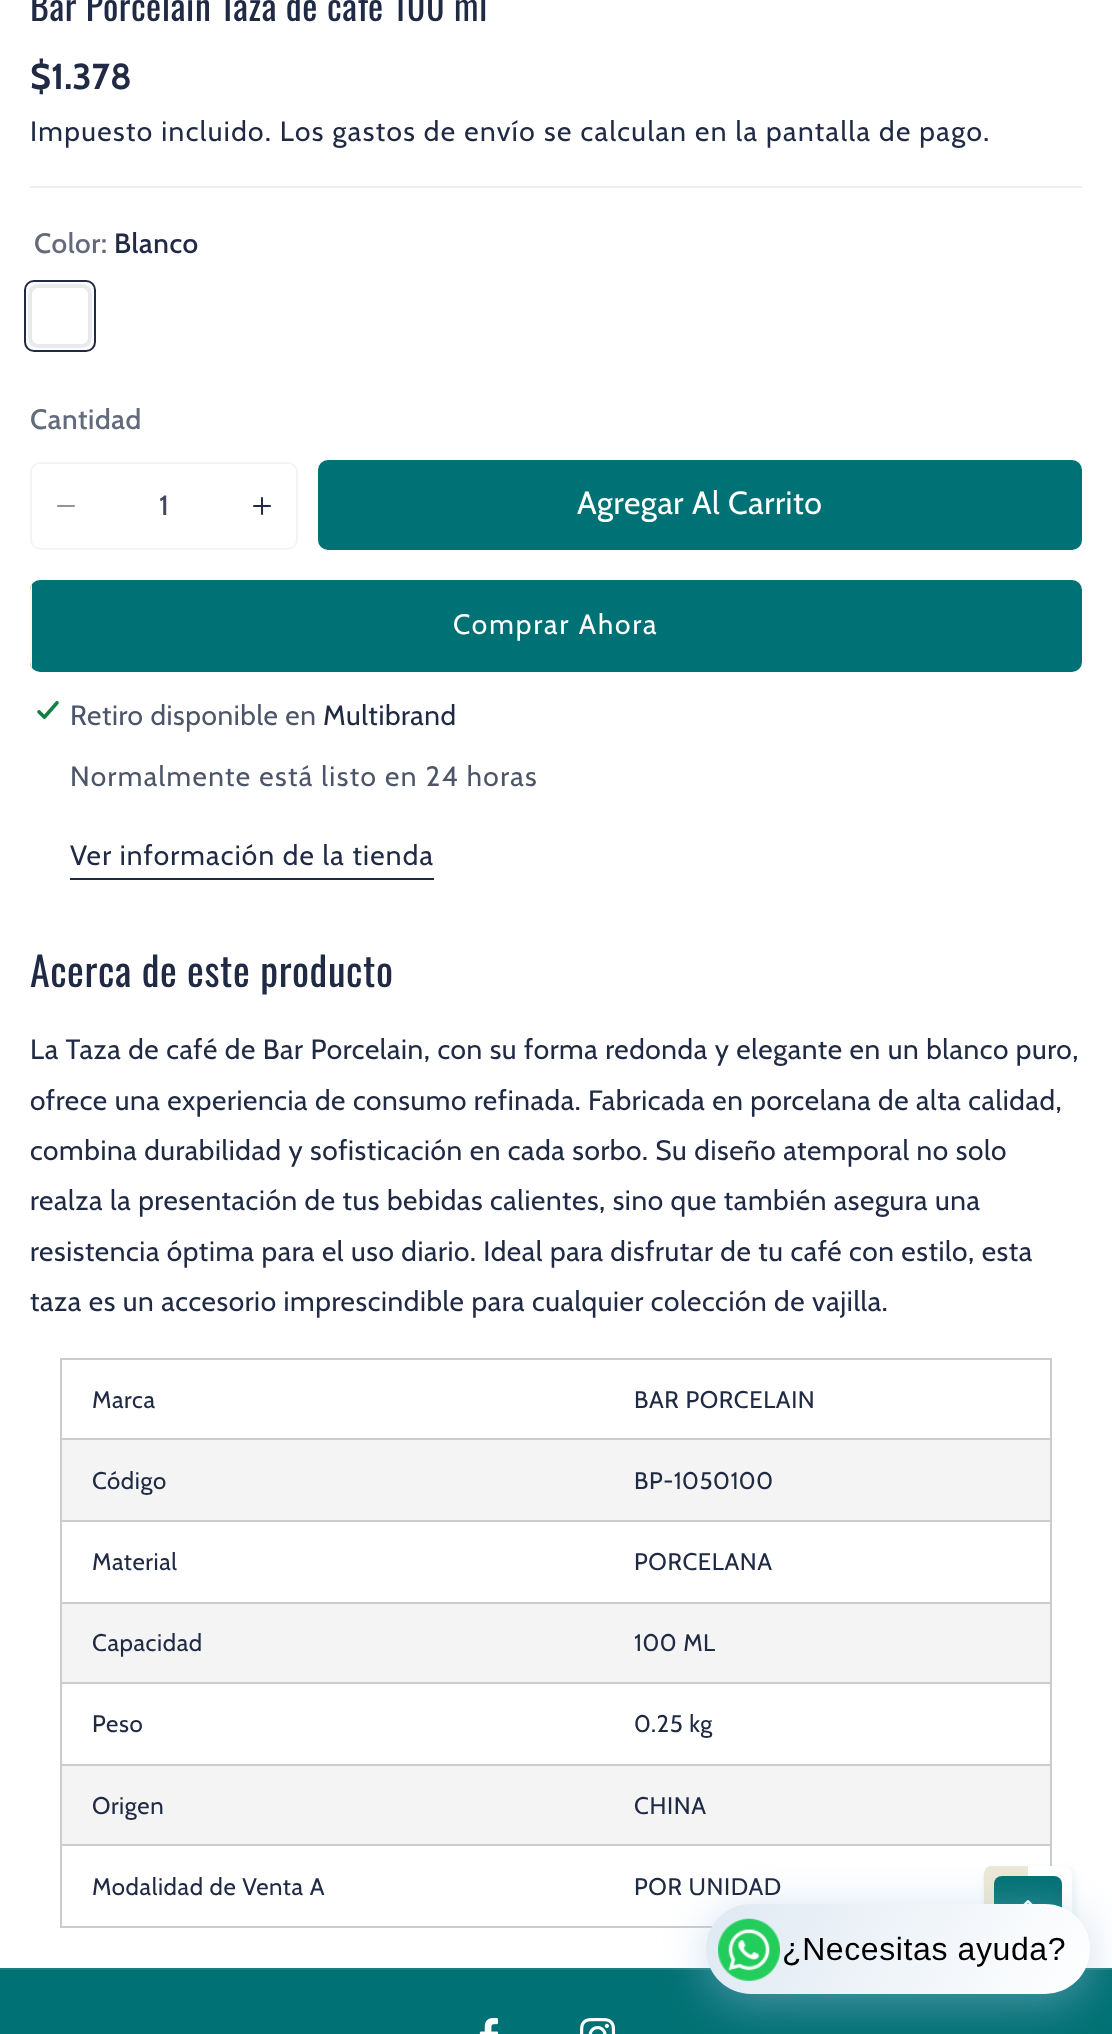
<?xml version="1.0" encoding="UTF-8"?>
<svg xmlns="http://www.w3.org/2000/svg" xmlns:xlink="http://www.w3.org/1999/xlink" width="1112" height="2034">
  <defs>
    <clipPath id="clip1"><rect x="30" y="580" width="1052" height="92" rx="10" /></clipPath>
    <linearGradient id="g1" gradientUnits="userSpaceOnUse" x1="723" y1="1867" x2="1073" y2="2031"><stop offset="0" stop-color="#dfe9f3" /><stop offset="1" stop-color="#ffffff" /></linearGradient>
  </defs>
  <rect width="100%" height="100%" fill="#ffffff" />
  <rect x="30" y="186" width="1052" height="2" fill="#edeef0" />
  <rect x="29" y="285" width="62" height="62" rx="9" fill="none" stroke="#e9eaec" stroke-width="2" />
  <rect x="31" y="287" width="58" height="58" rx="7" fill="none" stroke="#202a44" stroke-opacity="0.1" stroke-width="2" />
  <rect x="25" y="281" width="70" height="70" rx="9" fill="none" stroke="#202a44" stroke-width="2" />
  <image x="57" y="505" width="18" height="2" xlink:href="image1.png" />
  <image x="253" y="497" width="18" height="18" xlink:href="image2.png" />
  <rect x="31" y="463" width="266" height="86" rx="9" fill="none" stroke="#f4f4f6" stroke-width="2" />
  <rect x="318" y="460" width="764" height="90" rx="10" fill="#007174" />
  <rect x="30" y="580" width="1052" height="92" rx="10" fill="#007174" />
  <g clip-path="url(#clip1)">
    <rect x="30" y="580" width="2" height="92" fill="#f2a900" />
    <rect x="30" y="580" width="2" height="92" fill="#ffffff" fill-opacity="0.9" />
  </g>
  <image x="37" y="701" width="22" height="18" xlink:href="image3.png" />
  <rect x="70" y="878" width="364" height="2" fill="#202a44" />
  <rect x="60" y="1358" width="992" height="2" fill="#cccccc" />
  <rect x="1050" y="1358" width="2" height="508" fill="#cccccc" />
  <rect x="60" y="1926" width="653" height="2" fill="#cccccc" />
  <rect x="60" y="1358" width="2" height="570" fill="#cccccc" />
  <rect x="60" y="1438" width="992" height="2" fill="#cccccc" />
  <rect x="62" y="1440" width="988" height="80" fill="#f3f4f3" />
  <rect x="60" y="1520" width="992" height="2" fill="#cccccc" />
  <rect x="60" y="1602" width="992" height="2" fill="#cccccc" />
  <rect x="62" y="1604" width="988" height="78" fill="#f3f4f3" />
  <rect x="60" y="1682" width="992" height="2" fill="#cccccc" />
  <rect x="60" y="1764" width="992" height="2" fill="#cccccc" />
  <rect x="62" y="1766" width="988" height="78" fill="#f3f4f3" />
  <rect x="60" y="1844" width="992" height="2" fill="#cccccc" />
  <rect y="1970" width="1112" height="64" fill="#007174" />
  <rect y="1968" width="1112" height="2" fill="#1a7f82" />
  <rect x="984" y="1868" width="92" height="92" rx="10" fill="#007174" fill-opacity="0.07" filter="blur(3px)" />
  <path d="M 1028 1910 l -44 36 c 0 5 4 8 8 8 h 72 c 4 0 8 -4 8 -8 v -72 c 0 -4 -4 -8 -8 -8 h -36 z" fill="#ffffff" />
  <path d="M 1028 1910 v -44 h -38 c -8 2 -6 14 -6 20 v 60 z" fill="#ede8d5" />
  <rect x="994" y="1876" width="68" height="68" rx="8" fill="#007174" />
  <image x="1023" y="1900" width="10" height="4" xlink:href="image4.png" />
  <image x="479" y="2018" width="20" height="16" xlink:href="image5.png" />
  <image x="580" y="2018" width="36" height="16" xlink:href="image6.png" />
  <rect x="706" y="1912" width="384" height="90" rx="45" fill="#9fbedd" fill-opacity="0.5" filter="blur(24px)" />
  <rect x="706" y="1904" width="384" height="90" rx="45" fill="url(#g1)" />
  <image x="718" y="1918" width="62" height="63" xlink:href="image7.png" />
  <text x="30" y="21" style="font-family: Oswald; font-size: 36px; letter-spacing: 0.6px; fill: #202a44">Bar Porcelain Taza de café 100 ml</text>
  <text x="30" y="89" style="font-family: Cabin; font-size: 36px; font-weight: bold; fill: #202a44">$1.378</text>
  <text x="30" y="141" style="font-family: Cabin; font-size: 28px; letter-spacing: 1.4px; fill: #202a44">Impuesto incluido. Los gastos de envío</text>
  <text x="544" y="141" style="font-family: Cabin; font-size: 28px; letter-spacing: 1.4px; fill: #202a44">se calculan en la pantalla de pago.</text>
  <text x="34" y="253" style="font-family: Cabin; font-size: 28px; font-weight: 500; letter-spacing: 0.6px; fill: #636a7c">Color:</text>
  <text x="114" y="253" style="font-family: Cabin; font-size: 28px; font-weight: 500; letter-spacing: 0.6px; fill: #202a44">Blanco</text>
  <text x="30" y="429" style="font-family: Cabin; font-size: 28px; font-weight: 500; letter-spacing: 0.6px; fill: #636a7c">Cantidad</text>
  <text x="159" y="515" style="font-family: Cabin; font-size: 28px; font-weight: 500; fill: #414a60">1</text>
  <text x="577" y="514" style="font-family: Cabin; font-size: 32px; letter-spacing: 0.6px; fill: #ffffff">Agregar Al Carrito</text>
  <text x="453" y="634" style="font-family: Cabin; font-size: 28px; letter-spacing: 2px; fill: #ffffff">Comprar Ahora</text>
  <text x="70" y="725" style="font-family: Cabin; font-size: 28px; letter-spacing: 0.6px; fill: #4d5569">Retiro disponible en</text>
  <text x="323" y="725" style="font-family: Cabin; font-size: 28px; letter-spacing: 0.6px; fill: #202a44">Multibrand</text>
  <text x="70" y="786" style="font-family: Cabin; font-size: 28px; letter-spacing: 1.4px; fill: #4d5569">Normalmente está listo en 24 horas</text>
  <text x="70" y="865" style="font-family: Cabin; font-size: 28px; letter-spacing: 1.2px; fill: #202a44">Ver información de la tienda</text>
  <text x="30" y="987" style="font-family: Oswald; font-size: 40px; letter-spacing: 0.6px; fill: #202a44">Acerca de este producto</text>
  <text x="30" y="1059" style="font-family: Cabin; font-size: 28px; letter-spacing: 0.6px; fill: #202a44">La Taza de café de Bar Porcelain, con su forma redonda y elegante en un blanco puro,</text>
  <text x="30" y="1110" style="font-family: Cabin; font-size: 28px; letter-spacing: 0.6px; fill: #202a44">ofrece una experiencia de consumo refinada. Fabricada en porcelana de alta calidad,</text>
  <text x="30" y="1160" style="font-family: Cabin; font-size: 28px; letter-spacing: 0.6px; fill: #202a44">combina durabilidad y sofisticación en cada sorbo. Su diseño atemporal no solo</text>
  <text x="30" y="1210" style="font-family: Cabin; font-size: 28px; letter-spacing: 0.6px; fill: #202a44">realza la presentación de tus bebidas calientes, sino que también asegura una</text>
  <text x="30" y="1261" style="font-family: Cabin; font-size: 28px; letter-spacing: 0.6px; fill: #202a44">resistencia óptima para el uso diario. Ideal para disfrutar de tu café con estilo, esta</text>
  <text x="30" y="1311" style="font-family: Cabin; font-size: 28px; letter-spacing: 0.6px; fill: #202a44">taza es un accesorio imprescindible para cualquier colección de vajilla.</text>
  <text x="92" y="1408" style="font-family: Cabin; font-size: 24px; letter-spacing: 0.6px; fill: #202a44">Marca</text>
  <text x="634" y="1408" style="font-family: Cabin; font-size: 24px; letter-spacing: 0.6px; fill: #202a44">BAR PORCELAIN</text>
  <text x="92" y="1489" style="font-family: Cabin; font-size: 24px; letter-spacing: 0.6px; fill: #202a44">Código</text>
  <text x="634" y="1489" style="font-family: Cabin; font-size: 24px; letter-spacing: 0.6px; fill: #202a44">BP-1050100</text>
  <text x="92" y="1570" style="font-family: Cabin; font-size: 24px; letter-spacing: 0.6px; fill: #202a44">Material</text>
  <text x="634" y="1570" style="font-family: Cabin; font-size: 24px; letter-spacing: 0.6px; fill: #202a44">PORCELANA</text>
  <text x="92" y="1651" style="font-family: Cabin; font-size: 24px; letter-spacing: 0.6px; fill: #202a44">Capacidad</text>
  <text x="634" y="1651" style="font-family: Cabin; font-size: 24px; letter-spacing: 0.6px; fill: #202a44">100 ML</text>
  <text x="92" y="1732" style="font-family: Cabin; font-size: 24px; letter-spacing: 0.6px; fill: #202a44">Peso</text>
  <text x="634" y="1732" style="font-family: Cabin; font-size: 24px; letter-spacing: 0.6px; fill: #202a44">0.25 kg</text>
  <text x="92" y="1814" style="font-family: Cabin; font-size: 24px; letter-spacing: 0.6px; fill: #202a44">Origen</text>
  <text x="634" y="1814" style="font-family: Cabin; font-size: 24px; letter-spacing: 0.6px; fill: #202a44">CHINA</text>
  <text x="92" y="1895" style="font-family: Cabin; font-size: 24px; letter-spacing: 0.6px; fill: #202a44">Modalidad de Venta A</text>
  <text x="634" y="1895" style="font-family: Cabin; font-size: 24px; letter-spacing: 0.6px; fill: #202a44">POR UNIDAD</text>
  <text x="782" y="1960" style="font-family: Liberation Sans; font-size: 32px; letter-spacing: 0.6px; fill: #000000">¿Necesitas ayuda?</text>
</svg>
